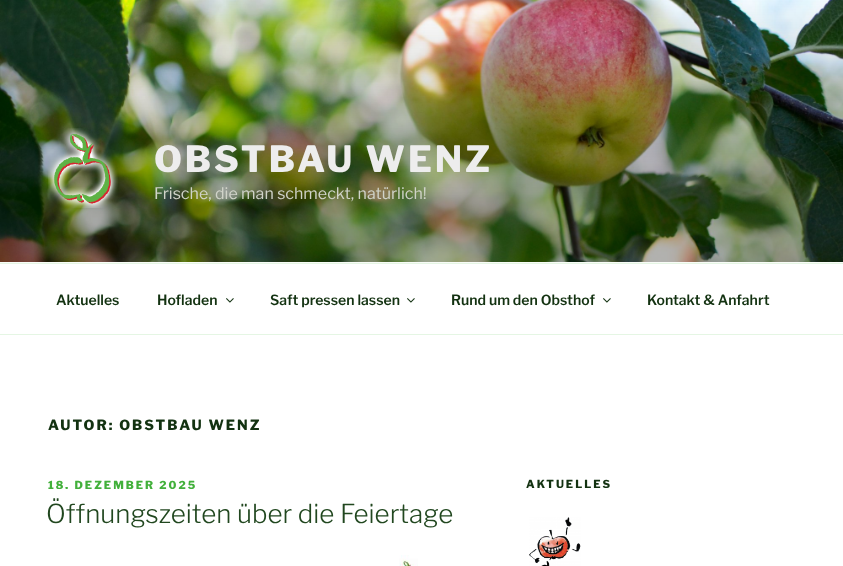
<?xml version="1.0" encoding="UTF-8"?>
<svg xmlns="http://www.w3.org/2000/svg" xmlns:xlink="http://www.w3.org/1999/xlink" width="843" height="566">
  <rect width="100%" height="100%" fill="#f8fcf7" />
  <image x="0" y="0" width="843" height="262" xlink:href="image1.png" />
  <image x="48" y="128" width="70" height="80" xlink:href="image2.png" />
  <rect y="264" width="843" height="70" fill="#ffffff" />
  <rect y="263" width="843" height="1" fill="#e5f6e4" />
  <rect y="334" width="843" height="1" fill="#e5f6e4" />
  <image x="226" y="298" width="8" height="5" xlink:href="image3.png" />
  <image x="407" y="298" width="8" height="5" xlink:href="image3.png" />
  <image x="603" y="298" width="8" height="5" xlink:href="image3.png" />
  <rect y="335" width="843" height="231" fill="#ffffff" />
  <image x="399" y="555" width="19" height="11" xlink:href="image4.png" />
  <image x="529" y="517" width="52" height="49" xlink:href="image5.png" />
  <text x="154" y="172" style="font-family: Libre Franklin; font-size: 36px; font-weight: 100; letter-spacing: 2.9px; fill: #ededed">OBSTBAU WENZ</text>
  <text x="154" y="199" style="font-family: 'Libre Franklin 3'; font-size: 16px; font-weight: 100; fill: #d0d3c9">Frische, die man schmeckt, natürlich!</text>
  <text x="56" y="305" style="font-family: 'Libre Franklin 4'; font-size: 14px; font-weight: 100; fill: #133211">Aktuelles</text>
  <text x="157" y="305" style="font-family: 'Libre Franklin 4'; font-size: 14px; font-weight: 100; fill: #133211">Hofladen</text>
  <text x="270" y="305" style="font-family: 'Libre Franklin 4'; font-size: 14px; font-weight: 100; fill: #133211">Saft pressen lassen</text>
  <text x="451" y="305" style="font-family: 'Libre Franklin 4'; font-size: 14px; font-weight: 100; fill: #133211">Rund um den Obsthof</text>
  <text x="647" y="305" style="font-family: 'Libre Franklin 4'; font-size: 14px; font-weight: 100; fill: #133211">Kontakt &amp; Anfahrt</text>
  <text x="48" y="430" style="font-family: Libre Franklin; font-size: 14px; font-weight: 100; letter-spacing: 2px; fill: #133211">AUTOR: OBSTBAU WENZ</text>
  <text x="48" y="489" style="font-family: Libre Franklin; font-size: 11px; font-weight: 100; letter-spacing: 2px; fill: #42b03b">18. DEZEMBER 2025</text>
  <text x="46" y="523" style="font-family: 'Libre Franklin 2'; font-size: 26px; font-weight: 100; fill: #21471f">Öffnungszeiten über die Feiertage</text>
  <text x="526" y="488" style="font-family: Libre Franklin; font-size: 11px; font-weight: 100; letter-spacing: 2px; fill: #133211">AKTUELLES</text>
</svg>
